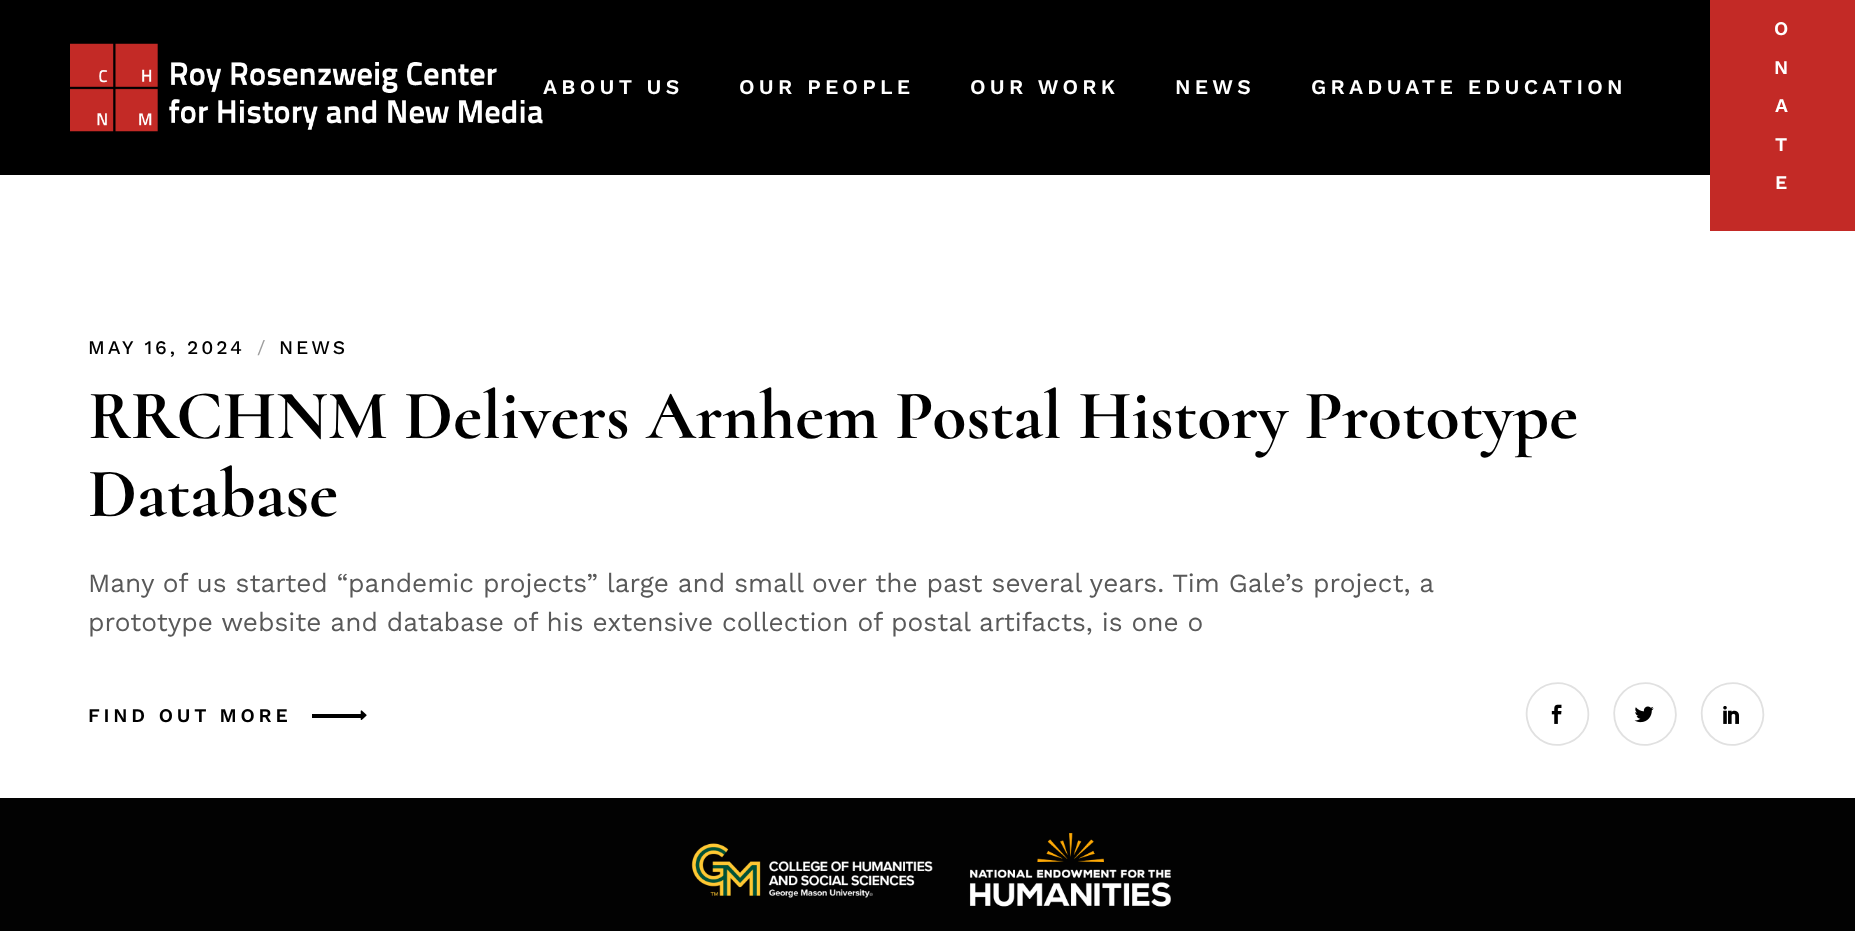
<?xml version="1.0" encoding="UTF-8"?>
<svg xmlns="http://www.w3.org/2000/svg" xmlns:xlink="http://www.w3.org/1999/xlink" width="1855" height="931">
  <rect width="100%" height="100%" fill="#ffffff" />
  <rect width="1710" height="175" fill="#000000" />
  <image x="70" y="43" width="473" height="89" xlink:href="image1.png" />
  <rect x="1710" width="145" height="231" fill="#c32a26" />
  <image x="360" y="710" width="7" height="10" xlink:href="image2.png" />
  <rect x="312" y="714" width="52" height="4" fill="#000000" />
  <image x="1551" y="704" width="11" height="20" xlink:href="image3.png" />
  <path d="M 1540 739.5 c -14 -10 -17.5 -29 -8 -43 c 10 -14 29 -17.5 43 -8 c 14 10 17.5 29 8 43 c -10 14 -29 17.5 -43 8" fill="none" stroke="#e1e1e1" stroke-width="1.8" />
  <image x="1634" y="706" width="20" height="17" xlink:href="image4.png" />
  <path d="M 1627.5 739.5 c -14 -10 -17.5 -29 -8 -43 c 10 -14 29 -17.5 43 -8 c 14 10 17.5 29 8 43 c -10 14 -29 17.5 -43 8" fill="none" stroke="#e1e1e1" stroke-width="1.8" />
  <image x="1723" y="706" width="16" height="18" xlink:href="image5.png" />
  <path d="M 1715 739.5 c -14 -10 -17.5 -29 -8 -43 c 10 -14 29 -17.5 43 -8 c 14 10 17.5 29 8 43 c -10 14 -29 17.5 -43 8" fill="none" stroke="#e1e1e1" stroke-width="1.8" />
  <rect y="798" width="1855" height="133" fill="#020202" />
  <image x="691" y="833" width="480" height="74" xlink:href="image6.png" />
  <text x="543" y="94" style="font-family: Work Sans; font-size: 21px; font-weight: 600; letter-spacing: 4.25px; fill: #ffffff">ABOUT US</text>
  <text x="739" y="94" style="font-family: Work Sans; font-size: 21px; font-weight: 600; letter-spacing: 4.25px; fill: #ffffff">OUR PEOPLE</text>
  <text x="970" y="94" style="font-family: Work Sans; font-size: 21px; font-weight: 600; letter-spacing: 4.25px; fill: #ffffff">OUR WORK</text>
  <text x="1175" y="94" style="font-family: Work Sans; font-size: 21px; font-weight: 600; letter-spacing: 4.25px; fill: #ffffff">NEWS</text>
  <text x="1311" y="94" style="font-family: Work Sans; font-size: 21px; font-weight: 600; letter-spacing: 4.25px; fill: #ffffff">GRADUATE EDUCATION</text>
  <text x="1774" y="35" style="font-family: Work Sans; font-size: 19.25px; font-weight: 600; letter-spacing: 3.8px; fill: #ffffff">O</text>
  <text x="1774" y="74" style="font-family: Work Sans; font-size: 19.25px; font-weight: 600; letter-spacing: 3.8px; fill: #ffffff">N</text>
  <text x="1775" y="112" style="font-family: Work Sans; font-size: 19.25px; font-weight: 600; letter-spacing: 3.8px; fill: #ffffff">A</text>
  <text x="1775" y="151" style="font-family: Work Sans; font-size: 19.25px; font-weight: 600; letter-spacing: 3.8px; fill: #ffffff">T</text>
  <text x="1775" y="189" style="font-family: Work Sans; font-size: 19.25px; font-weight: 600; letter-spacing: 3.8px; fill: #ffffff">E</text>
  <text x="88" y="354" style="font-family: Work Sans; font-size: 19.25px; font-weight: 500; letter-spacing: 2.9px; fill: #000000">MAY 16, 2024</text>
  <text x="257" y="354" style="font-family: Work Sans; font-size: 19.25px; fill: #9e9e9e">/</text>
  <text x="279" y="354" style="font-family: Work Sans; font-size: 19.25px; font-weight: 500; letter-spacing: 2.9px; fill: #000000">NEWS</text>
  <text x="88" y="438" style="font-family: Cormorant; font-size: 70px; font-weight: bold; fill: #000000">RRCHNM Delivers Arnhem Postal History Prototype</text>
  <text x="88" y="516" style="font-family: Cormorant; font-size: 70px; font-weight: bold; fill: #000000">Database</text>
  <text x="88" y="592" style="font-family: Work Sans; font-size: 26.25px; fill: #595959">Many of us started “pandemic projects” large and small over the past several years. Tim Gale’s project, a</text>
  <text x="88" y="631" style="font-family: Work Sans; font-size: 26.25px; fill: #595959">prototype website and database of his extensive collection of postal artifacts, is one o</text>
  <text x="88" y="722" style="font-family: Work Sans; font-size: 19.25px; font-weight: 600; letter-spacing: 3.8px; fill: #000000">FIND OUT MORE</text>
</svg>
